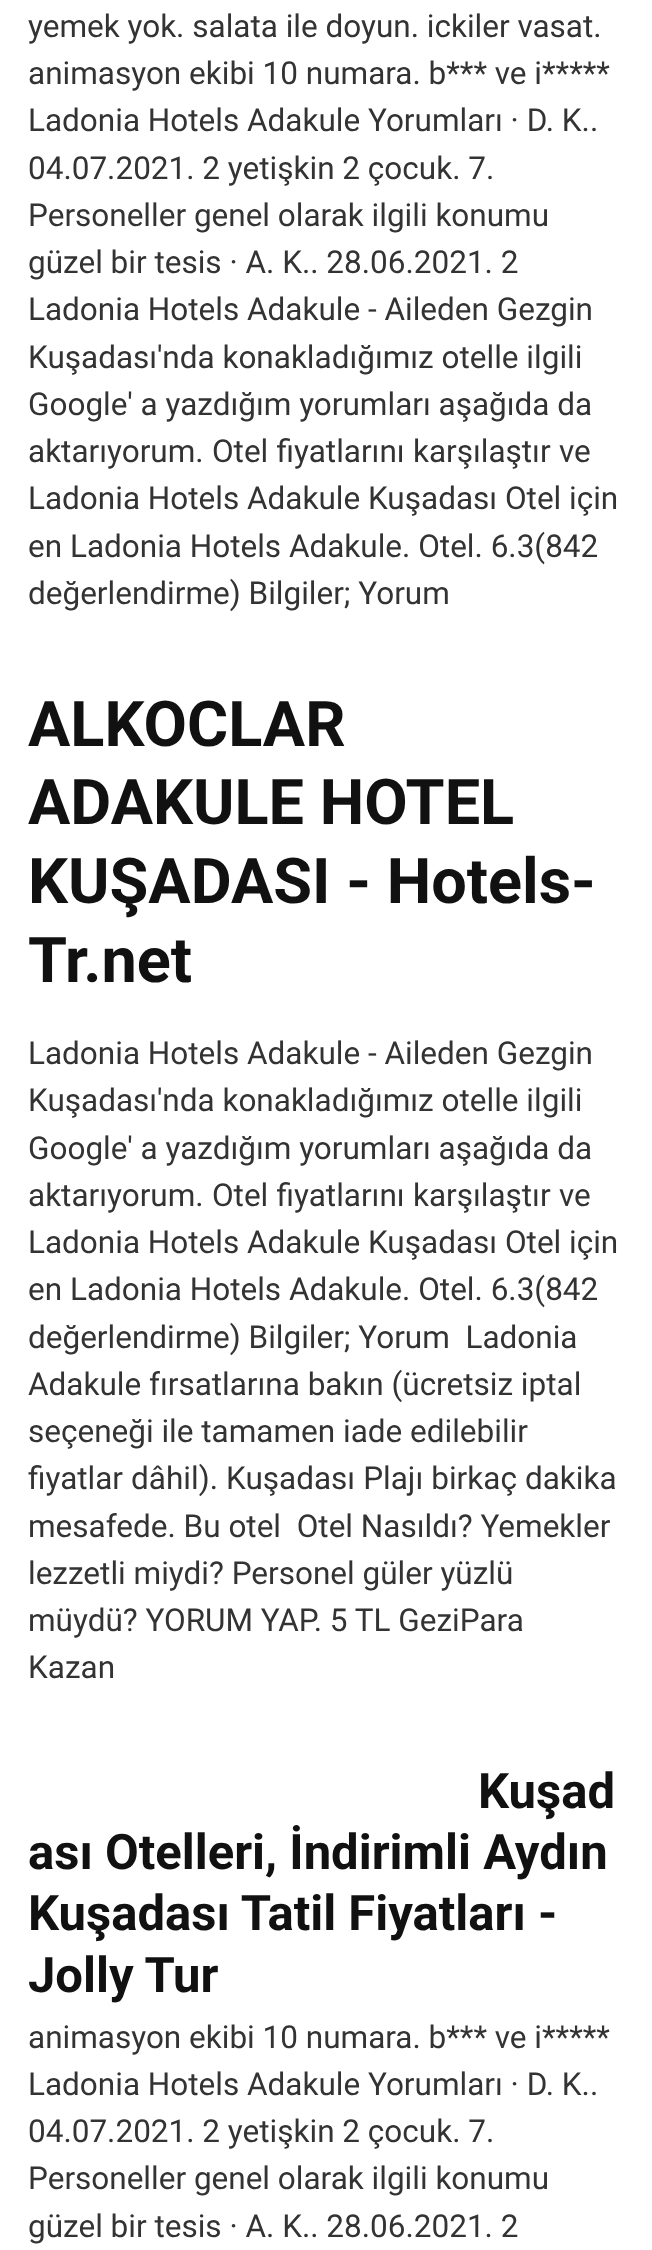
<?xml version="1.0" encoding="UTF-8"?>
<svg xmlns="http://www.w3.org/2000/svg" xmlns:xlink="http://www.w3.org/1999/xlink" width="652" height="2250">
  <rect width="100%" height="100%" fill="#ffffff" />
  <text x="28" y="37" style="font-family: Roboto; font-size: 31.5px; fill: #333333">yemek yok. salata ile doyun. ickiler vasat.</text>
  <text x="28" y="84" style="font-family: Roboto; font-size: 31.5px; fill: #333333">animasyon ekibi 10 numara. b*** ve i*****</text>
  <text x="28" y="131" style="font-family: Roboto; font-size: 31.5px; fill: #333333">Ladonia Hotels Adakule Yorumları · D. K..</text>
  <text x="28" y="179" style="font-family: Roboto; font-size: 31.5px; fill: #333333">04.07.2021. 2 yetişkin 2 çocuk. 7.</text>
  <text x="28" y="226" style="font-family: Roboto; font-size: 31.5px; fill: #333333">Personeller genel olarak ilgili konumu</text>
  <text x="28" y="273" style="font-family: Roboto; font-size: 31.5px; fill: #333333">güzel bir tesis · A. K.. 28.06.2021. 2</text>
  <text x="28" y="320" style="font-family: Roboto; font-size: 31.5px; fill: #333333">Ladonia Hotels Adakule - Aileden Gezgin</text>
  <text x="28" y="368" style="font-family: Roboto; font-size: 31.5px; fill: #333333">Kuşadası'nda konakladığımız otelle ilgili</text>
  <text x="28" y="415" style="font-family: Roboto; font-size: 31.5px; fill: #333333">Google' a yazdığım yorumları aşağıda da</text>
  <text x="28" y="462" word-spacing="0.5" style="font-family: Roboto; font-size: 31.5px; fill: #333333">aktarıyorum. Otel fiyatlarını karşılaştır ve</text>
  <text x="28" y="509" style="font-family: Roboto; font-size: 31.5px; fill: #333333">Ladonia Hotels Adakule Kuşadası Otel için</text>
  <text x="28" y="557" style="font-family: Roboto; font-size: 31.5px; fill: #333333">en Ladonia Hotels Adakule. Otel. 6.3(842</text>
  <text x="28" y="604" style="font-family: Roboto; font-size: 31.5px; fill: #333333">değerlendirme) Bilgiler; Yorum</text>
  <text x="28" y="746" style="font-family: Roboto; font-size: 63px; font-weight: bold; fill: #111111">ALKOCLAR</text>
  <text x="28" y="824" style="font-family: Roboto; font-size: 63px; font-weight: bold; fill: #111111">ADAKULE HOTEL</text>
  <text x="28" y="903" style="font-family: Roboto; font-size: 63px; font-weight: bold; fill: #111111">KUŞADASI - Hotels-</text>
  <text x="28" y="982" style="font-family: Roboto; font-size: 63px; font-weight: bold; fill: #111111">Tr.net</text>
  <text x="28" y="1064" style="font-family: Roboto; font-size: 31.5px; fill: #333333">Ladonia Hotels Adakule - Aileden Gezgin</text>
  <text x="28" y="1111" style="font-family: Roboto; font-size: 31.5px; fill: #333333">Kuşadası'nda konakladığımız otelle ilgili</text>
  <text x="28" y="1159" style="font-family: Roboto; font-size: 31.5px; fill: #333333">Google' a yazdığım yorumları aşağıda da</text>
  <text x="28" y="1206" word-spacing="0.5" style="font-family: Roboto; font-size: 31.5px; fill: #333333">aktarıyorum. Otel fiyatlarını karşılaştır ve</text>
  <text x="28" y="1253" style="font-family: Roboto; font-size: 31.5px; fill: #333333">Ladonia Hotels Adakule Kuşadası Otel için</text>
  <text x="28" y="1300" style="font-family: Roboto; font-size: 31.5px; fill: #333333">en Ladonia Hotels Adakule. Otel. 6.3(842</text>
  <text x="28" y="1348" style="font-family: Roboto; font-size: 31.5px; fill: #333333" xml:space="preserve">değerlendirme) Bilgiler; Yorum  Ladonia</text>
  <text x="28" y="1395" style="font-family: Roboto; font-size: 31.5px; fill: #333333">Adakule fırsatlarına bakın (ücretsiz iptal</text>
  <text x="28" y="1442" style="font-family: Roboto; font-size: 31.5px; fill: #333333">seçeneği ile tamamen iade edilebilir</text>
  <text x="28" y="1489" word-spacing="0.25" style="font-family: Roboto; font-size: 31.5px; fill: #333333">fiyatlar dâhil). Kuşadası Plajı birkaç dakika</text>
  <text x="28" y="1537" style="font-family: Roboto; font-size: 31.5px; fill: #333333" xml:space="preserve">mesafede. Bu otel  Otel Nasıldı? Yemekler</text>
  <text x="28" y="1584" style="font-family: Roboto; font-size: 31.5px; fill: #333333">lezzetli miydi? Personel güler yüzlü</text>
  <text x="28" y="1631" style="font-family: Roboto; font-size: 31.5px; fill: #333333">müydü? YORUM YAP. 5 TL GeziPara</text>
  <text x="28" y="1678" style="font-family: Roboto; font-size: 31.5px; fill: #333333">Kazan</text>
  <text x="478" y="1808" style="font-family: Roboto; font-size: 49px; font-weight: bold; fill: #111111">Kuşad</text>
  <text x="28" y="1869" style="font-family: Roboto; font-size: 49px; font-weight: bold; fill: #111111">ası Otelleri, İndirimli Aydın</text>
  <text x="28" y="1930" style="font-family: Roboto; font-size: 49px; font-weight: bold; fill: #111111">Kuşadası Tatil Fiyatları -</text>
  <text x="28" y="1992" style="font-family: Roboto; font-size: 49px; font-weight: bold; fill: #111111">Jolly Tur</text>
  <text x="28" y="2048" style="font-family: Roboto; font-size: 31.5px; fill: #333333">animasyon ekibi 10 numara. b*** ve i*****</text>
  <text x="28" y="2095" style="font-family: Roboto; font-size: 31.5px; fill: #333333">Ladonia Hotels Adakule Yorumları · D. K..</text>
  <text x="28" y="2142" style="font-family: Roboto; font-size: 31.5px; fill: #333333">04.07.2021. 2 yetişkin 2 çocuk. 7.</text>
  <text x="28" y="2189" style="font-family: Roboto; font-size: 31.5px; fill: #333333">Personeller genel olarak ilgili konumu</text>
  <text x="28" y="2237" style="font-family: Roboto; font-size: 31.5px; fill: #333333">güzel bir tesis · A. K.. 28.06.2021. 2</text>
</svg>
